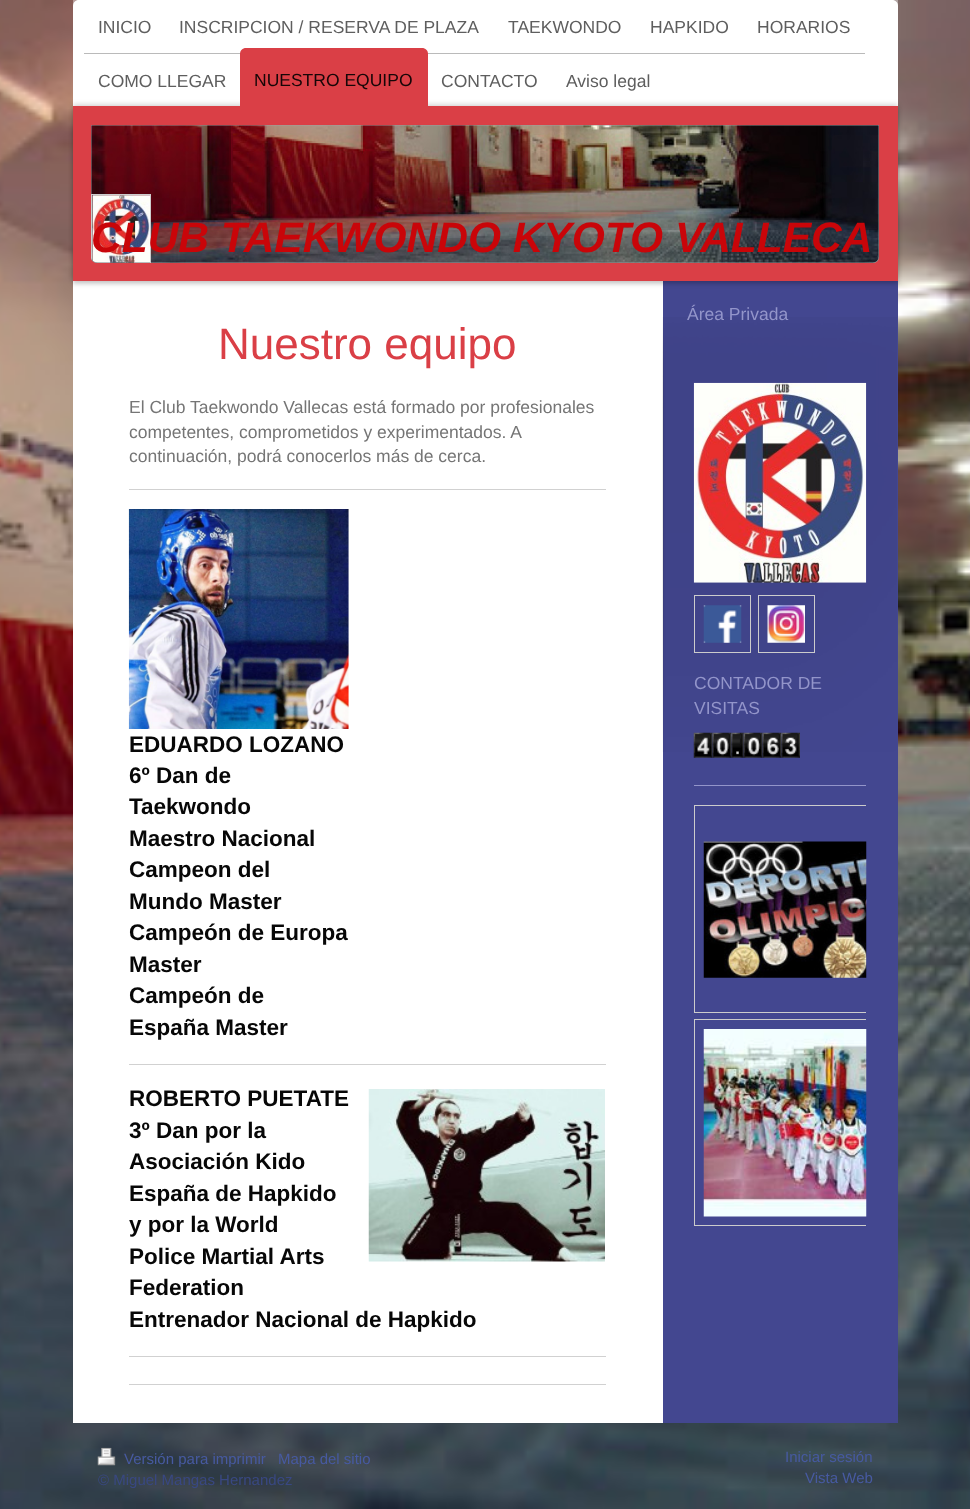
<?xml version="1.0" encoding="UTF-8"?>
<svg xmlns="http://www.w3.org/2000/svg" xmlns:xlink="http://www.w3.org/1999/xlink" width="970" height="1509">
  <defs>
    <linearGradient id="g1" gradientUnits="userSpaceOnUse" x1="59" y1="0" x2="59" y2="108"><stop offset="0" stop-color="#ffffff" stop-opacity="0.4" /><stop offset="1" stop-color="#ffffff" stop-opacity="0" /></linearGradient>
    <clipPath id="clip1"><rect x="694" y="805" width="172" height="428" /></clipPath>
    <clipPath id="clip2"><rect x="98" y="1448" width="775" height="43" /></clipPath>
  </defs>
  <rect width="100%" height="100%" fill="#ffffff" />
  <image x="0" y="0" width="970" height="1509" xlink:href="image1.png" />
  <path d="M 79 0 h 813 c 3.5 0 6 2.5 6 6 v 102 h -825 v -102 c 0 -3.5 2.5 -6 6 -6 z" fill="#ffffff" />
  <path d="M 79 1 h 812 c 4 0 7 3 7 7 v -2 c 0 -3 -3 -6 -6 -6 h -813 c -2 0 -5 1 -5 4 c 1 -2 3 -3 5 -3 z" fill="#ffffff" fill-opacity="0.3" />
  <rect x="73" width="825" height="6" fill="url(#g1)" />
  <rect x="84" y="53" width="781" height="1" fill="#bababa" />
  <rect x="73" y="281" width="590" height="1142" fill="#ffffff" />
  <rect x="663" y="281" width="235" height="1142" fill="#434790" />
  <rect x="73" y="104" width="825" height="175" fill="#000000" fill-opacity="0.15" filter="blur(2.5px)" />
  <rect x="73" y="109" width="825" height="175" fill="#000000" fill-opacity="0.2" filter="blur(2px)" />
  <rect x="73" y="106" width="825" height="175" fill="#da3f46" />
  <path d="M 246 48 h 176 c 3.5 0 6 2.5 6 6 v 54 h -188 v -54 c 0 -3.5 2.5 -6 6 -6 z" fill="#da3f46" />
  <image x="91" y="257" width="788" height="6" xlink:href="image4.png" />
  <path d="M 91 125 h 788 v 132 c 0 3.5 -2.5 6 -6 6 h -776 c -3.5 0 -6 -2.5 -6 -6 z" fill="#a0a0a0" />
  <image x="91" y="125" width="788" height="138" xlink:href="image2.png" />
  <path d="M 92 195 h 58 v 68 h 1 v -69 h -60 v 63 c 0 1 0 2 1 3 z" fill="#cccccc" />
  <image x="92" y="195" width="58" height="68" xlink:href="image3.png" />
  <rect x="129" y="489" width="477" height="1" fill="#d1d1d1" />
  <image x="128" y="509" width="221" height="220" xlink:href="image5.png" />
  <rect x="129" y="1064" width="477" height="1" fill="#d1d1d1" />
  <image x="368" y="1089" width="237" height="173" xlink:href="image6.png" />
  <rect x="129" y="1356" width="477" height="1" fill="#d1d1d1" />
  <rect x="129" y="1384" width="477" height="1" fill="#d1d1d1" />
  <image x="662" y="317" width="235" height="435" xlink:href="image7.png" />
  <image x="693" y="382" width="174" height="201" xlink:href="image8.png" />
  <rect x="694.5" y="595.5" width="56" height="57" fill="none" stroke="#cccccc" />
  <image x="703" y="605" width="39" height="38" xlink:href="image9.png" />
  <rect x="758.5" y="595.5" width="56" height="57" fill="none" stroke="#cccccc" />
  <image x="767" y="605" width="38" height="38" xlink:href="image10.png" />
  <image x="693" y="732" width="20" height="26" xlink:href="image11.png" />
  <image x="712" y="732" width="20" height="26" xlink:href="image12.png" />
  <image x="731" y="732" width="13" height="26" xlink:href="image13.png" />
  <image x="743" y="732" width="20" height="26" xlink:href="image14.png" />
  <image x="762" y="732" width="20" height="26" xlink:href="image15.png" />
  <image x="781" y="732" width="19" height="26" xlink:href="image16.png" />
  <rect x="694" y="785" width="172" height="1" fill="#9395ca" />
  <g clip-path="url(#clip1)">
    <rect x="694.5" y="805.5" width="206" height="207" fill="none" stroke="#cccccc" />
  </g>
  <image x="703" y="841" width="164" height="137" xlink:href="image17.png" />
  <g clip-path="url(#clip1)">
    <rect x="694.5" y="1019.5" width="206" height="206" fill="none" stroke="#cccccc" />
  </g>
  <image x="703" y="1029" width="164" height="188" xlink:href="image18.png" />
  <image x="97" y="1447" width="19" height="19" xlink:href="image19.png" />
  <text x="98" y="33" style="font-family: Liberation Sans; font-size: 17.5px; fill: #5e5e5e">INICIO</text>
  <text x="179" y="33" style="font-family: Liberation Sans; font-size: 17.5px; fill: #5e5e5e">INSCRIPCION / RESERVA DE PLAZA</text>
  <text x="508" y="33" style="font-family: Liberation Sans; font-size: 17.5px; fill: #5e5e5e">TAEKWONDO</text>
  <text x="650" y="33" style="font-family: Liberation Sans; font-size: 17.5px; fill: #5e5e5e">HAPKIDO</text>
  <text x="757" y="33" style="font-family: Liberation Sans; font-size: 17.5px; fill: #5e5e5e">HORARIOS</text>
  <text x="98" y="87" style="font-family: Liberation Sans; font-size: 17.5px; fill: #5e5e5e">COMO LLEGAR</text>
  <text x="254" y="86" style="font-family: Liberation Sans; font-size: 17.5px; fill: #160607">NUESTRO EQUIPO</text>
  <text x="441" y="87" style="font-family: Liberation Sans; font-size: 17.5px; fill: #5e5e5e">CONTACTO</text>
  <text x="566" y="87" style="font-family: Liberation Sans; font-size: 17.5px; fill: #5e5e5e">Aviso legal</text>
  <text x="91" y="252" style="font-family: Liberation Sans; font-size: 42.5px; font-weight: bold; font-style: italic; fill: #c90509">CLUB TAEKWONDO KYOTO VALLECA</text>
  <text x="218" y="359" style="font-family: Liberation Sans; font-size: 44px; fill: #da3f46">Nuestro equipo</text>
  <text x="129" y="413" style="font-family: Liberation Sans; font-size: 17.5px; fill: #757575">El Club Taekwondo Vallecas está formado por profesionales</text>
  <text x="129" y="438" style="font-family: Liberation Sans; font-size: 17.5px; fill: #757575">competentes, comprometidos y experimentados. A</text>
  <text x="129" y="462" style="font-family: Liberation Sans; font-size: 17.5px; fill: #757575">continuación, podrá conocerlos más de cerca.</text>
  <text x="129" y="752" style="font-family: Liberation Sans; font-size: 22.5px; font-weight: bold; fill: #070707">EDUARDO LOZANO</text>
  <text x="129" y="783" style="font-family: Liberation Sans; font-size: 22.5px; font-weight: bold; fill: #070707">6º Dan de</text>
  <text x="129" y="814" style="font-family: Liberation Sans; font-size: 22.5px; font-weight: bold; fill: #070707">Taekwondo</text>
  <text x="129" y="846" style="font-family: Liberation Sans; font-size: 22.5px; font-weight: bold; fill: #070707">Maestro Nacional</text>
  <text x="129" y="877" style="font-family: Liberation Sans; font-size: 22.5px; font-weight: bold; fill: #070707">Campeon del</text>
  <text x="129" y="909" style="font-family: Liberation Sans; font-size: 22.5px; font-weight: bold; fill: #070707">Mundo Master</text>
  <text x="129" y="940" style="font-family: Liberation Sans; font-size: 22.5px; font-weight: bold; fill: #070707">Campeón de Europa</text>
  <text x="129" y="972" style="font-family: Liberation Sans; font-size: 22.5px; font-weight: bold; fill: #070707">Master</text>
  <text x="129" y="1003" style="font-family: Liberation Sans; font-size: 22.5px; font-weight: bold; fill: #070707">Campeón de</text>
  <text x="129" y="1035" style="font-family: Liberation Sans; font-size: 22.5px; font-weight: bold; fill: #070707">España Master</text>
  <text x="129" y="1106" style="font-family: Liberation Sans; font-size: 22.5px; font-weight: bold; fill: #070707">ROBERTO PUETATE</text>
  <text x="129" y="1138" style="font-family: Liberation Sans; font-size: 22.5px; font-weight: bold; fill: #070707">3º Dan por la</text>
  <text x="129" y="1169" style="font-family: Liberation Sans; font-size: 22.5px; font-weight: bold; fill: #070707">Asociación Kido</text>
  <text x="129" y="1201" style="font-family: Liberation Sans; font-size: 22.5px; font-weight: bold; fill: #070707">España de Hapkido</text>
  <text x="129" y="1232" style="font-family: Liberation Sans; font-size: 22.5px; font-weight: bold; fill: #070707">y por la World</text>
  <text x="129" y="1264" style="font-family: Liberation Sans; font-size: 22.5px; font-weight: bold; fill: #070707">Police Martial Arts</text>
  <text x="129" y="1295" style="font-family: Liberation Sans; font-size: 22.5px; font-weight: bold; fill: #070707">Federation</text>
  <text x="129" y="1327" style="font-family: Liberation Sans; font-size: 22.5px; font-weight: bold; fill: #070707">Entrenador Nacional de Hapkido</text>
  <text x="687" y="320" style="font-family: Liberation Sans; font-size: 17.5px; fill: #9395ca">Área Privada</text>
  <text x="694" y="689" style="font-family: Liberation Sans; font-size: 17.5px; fill: #9395ca">CONTADOR DE</text>
  <text x="694" y="714" style="font-family: Liberation Sans; font-size: 17.5px; fill: #9395ca">VISITAS</text>
  <text x="124" y="1464" style="font-family: Liberation Sans; font-size: 15px; fill: #475aa1">Versión para imprimir</text>
  <text x="278" y="1464" style="font-family: Liberation Sans; font-size: 15px; fill: #475aa1">Mapa del sitio</text>
  <g clip-path="url(#clip2)">
    <text x="98" y="1485" style="font-family: Liberation Sans; font-size: 15px; fill: #394882">© Miguel Mangas Hernandez</text>
  </g>
  <text x="785" y="1462" style="font-family: Liberation Sans; font-size: 15px; fill: #475aa1">Iniciar sesión</text>
  <text x="805" y="1483" style="font-family: Liberation Sans; font-size: 15px; fill: #475aa1">Vista Web</text>
</svg>
